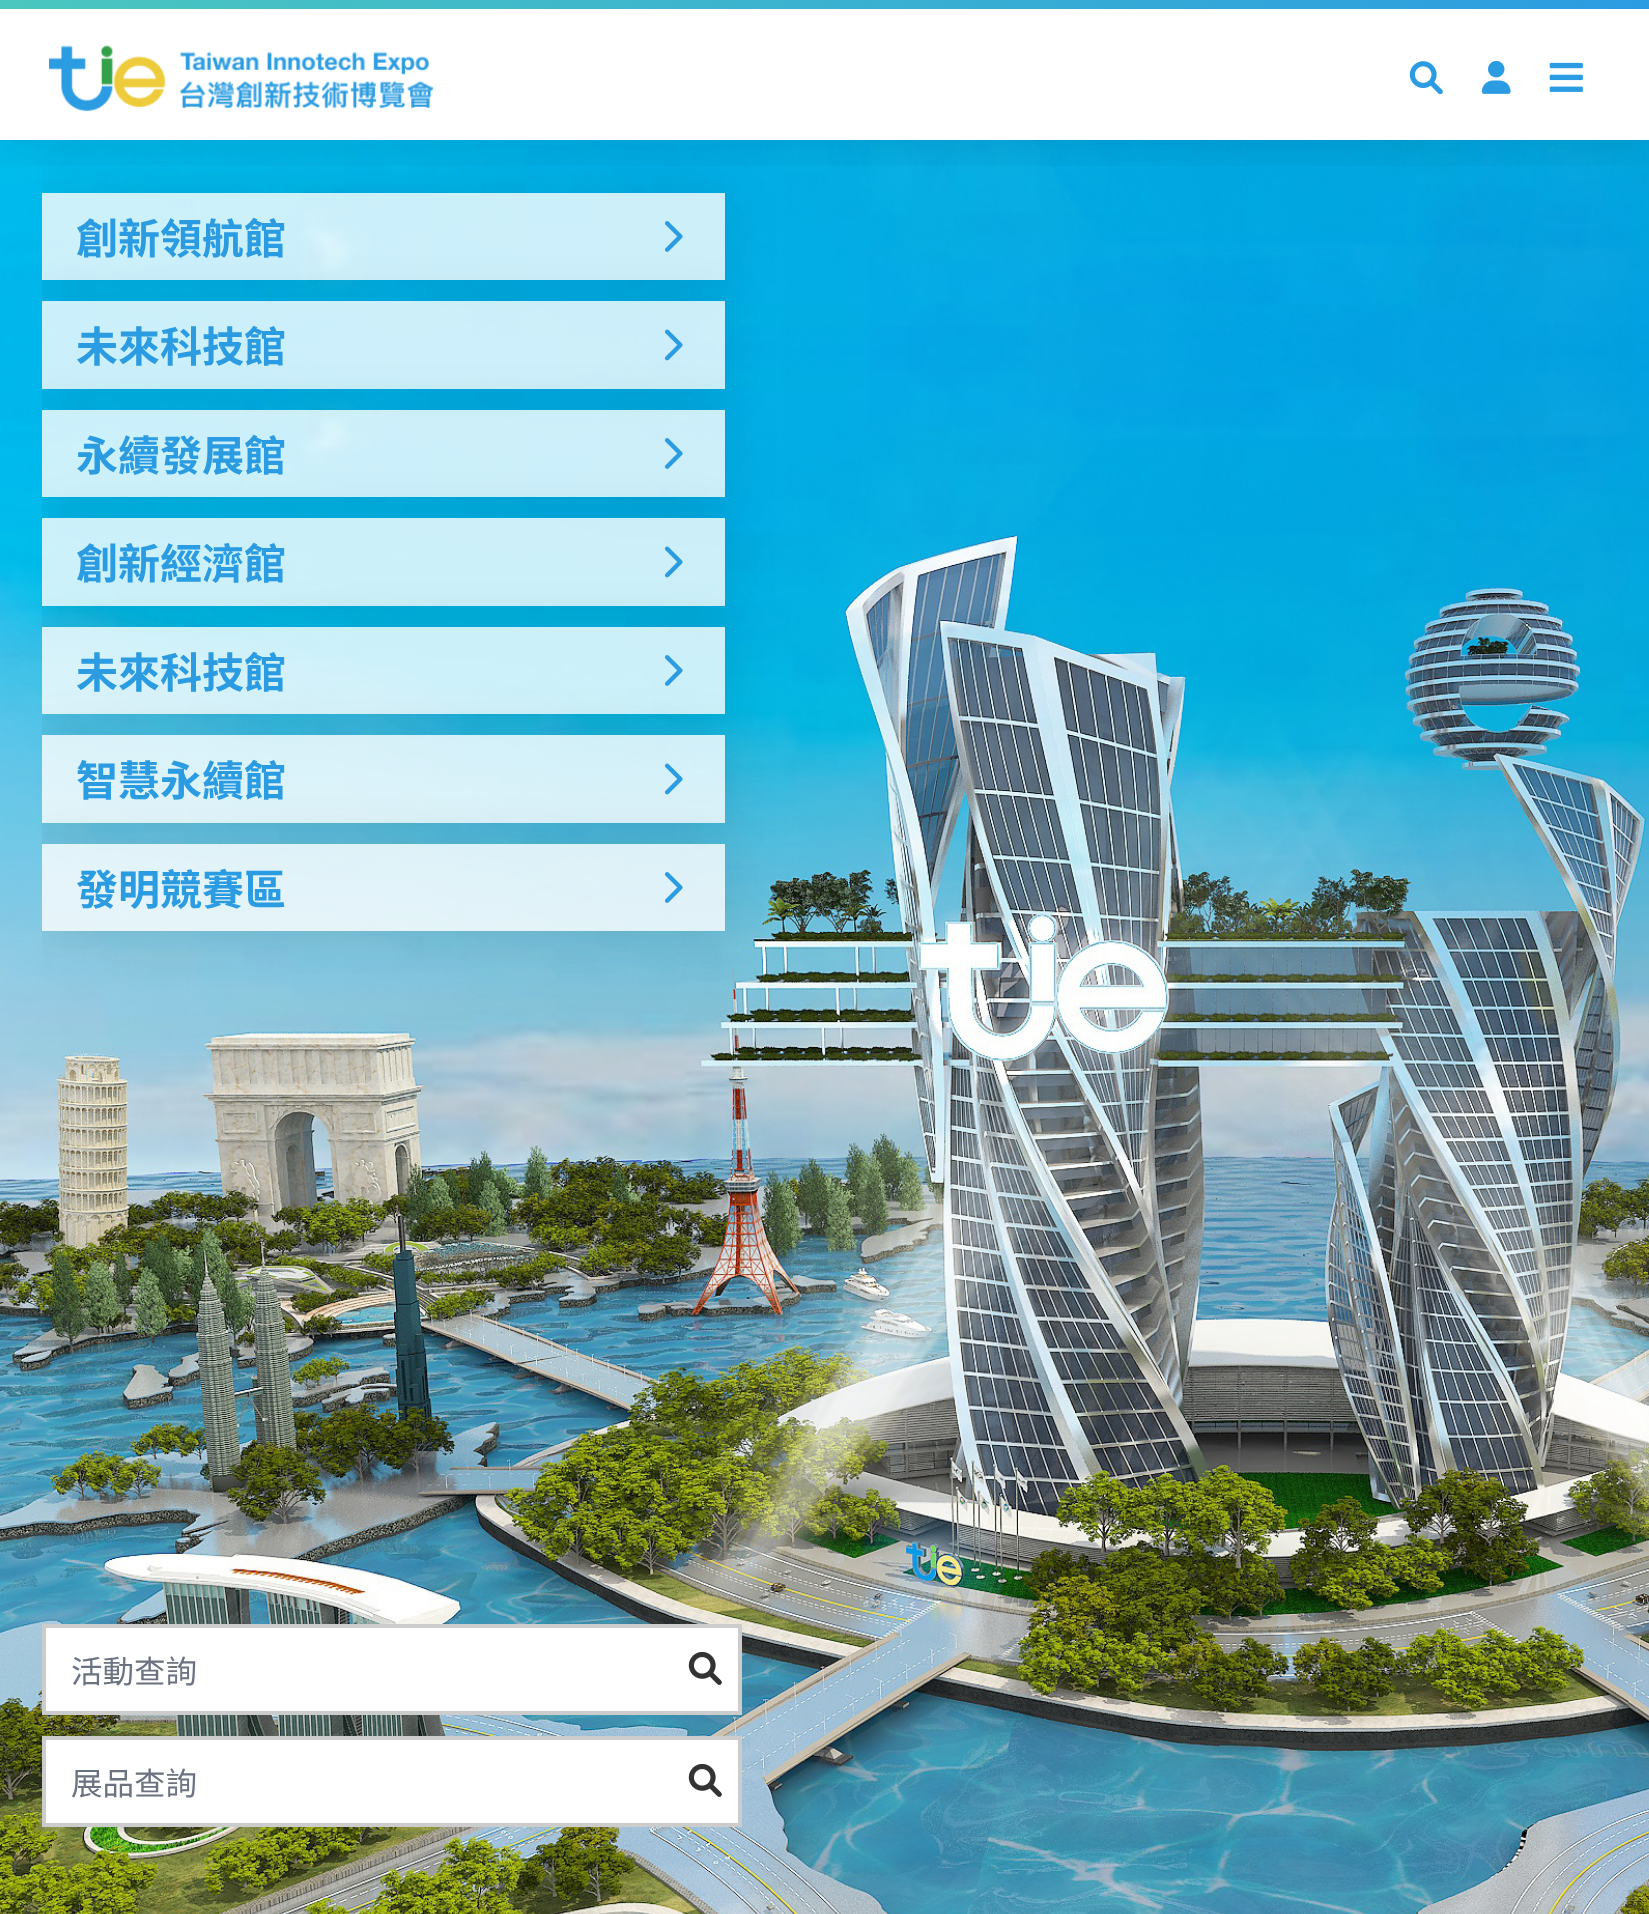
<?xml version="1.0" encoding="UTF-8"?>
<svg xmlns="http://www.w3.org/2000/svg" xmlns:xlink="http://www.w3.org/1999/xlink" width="1649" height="1914">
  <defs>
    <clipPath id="clip1"><rect x="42" y="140" width="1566" height="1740" /></clipPath>
    <clipPath id="clip2"><path d="M 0 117 h 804 v 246 h -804 z m 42 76 h 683 v 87 h -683 z" clip-rule="evenodd" /></clipPath>
    <clipPath id="clip3"><rect x="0" y="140" width="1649" height="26" /></clipPath>
    <linearGradient id="g1" gradientUnits="userSpaceOnUse" x1="410" y1="-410" x2="1240" y2="419"><stop offset="0" stop-color="#4bc7bf" /><stop offset="1" stop-color="#2b9ce2" /></linearGradient>
    <clipPath id="clip4"><path d="M 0 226 h 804 v 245 h -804 z m 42 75 h 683 v 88 h -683 z" clip-rule="evenodd" /></clipPath>
    <clipPath id="clip5"><path d="M 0 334 h 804 v 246 h -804 z m 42 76 h 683 v 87 h -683 z" clip-rule="evenodd" /></clipPath>
    <clipPath id="clip6"><path d="M 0 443 h 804 v 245 h -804 z m 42 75 h 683 v 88 h -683 z" clip-rule="evenodd" /></clipPath>
    <clipPath id="clip7"><path d="M 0 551 h 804 v 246 h -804 z m 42 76 h 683 v 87 h -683 z" clip-rule="evenodd" /></clipPath>
    <clipPath id="clip8"><path d="M 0 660 h 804 v 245 h -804 z m 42 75 h 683 v 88 h -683 z" clip-rule="evenodd" /></clipPath>
    <clipPath id="clip9"><path d="M 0 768 h 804 v 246 h -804 z m 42 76 h 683 v 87 h -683 z" clip-rule="evenodd" /></clipPath>
  </defs>
  <rect width="100%" height="100%" fill="#ffffff" />
  <image x="0" y="140" width="1649" height="1774" xlink:href="image5.png" />
  <g clip-path="url(#clip1)">
    <g clip-path="url(#clip2)">
      <rect x="42" y="196" width="683" height="88" fill="#000000" fill-opacity="0.1" filter="blur(26px)" />
    </g>
  </g>
  <rect x="42" y="193" width="683" height="87" fill="#ffffff" fill-opacity="0.8" />
  <image x="664" y="221" width="19" height="31" xlink:href="image6.png" />
  <g clip-path="url(#clip3)">
    <rect y="4" width="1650" height="140" fill="#000000" fill-opacity="0.1" filter="blur(26px)" />
  </g>
  <rect width="1649" height="9" fill="url(#g1)" />
  <image x="49" y="45" width="385" height="67" xlink:href="image1.png" />
  <image x="1409" y="61" width="34" height="34" xlink:href="image2.png" />
  <image x="1481" y="60" width="30" height="34" xlink:href="image3.png" />
  <image x="1549" y="62" width="34" height="30" xlink:href="image4.png" />
  <g clip-path="url(#clip1)">
    <g clip-path="url(#clip4)">
      <rect x="42" y="305" width="683" height="87" fill="#000000" fill-opacity="0.1" filter="blur(26px)" />
    </g>
  </g>
  <rect x="42" y="301" width="683" height="88" fill="#ffffff" fill-opacity="0.8" />
  <image x="664" y="329" width="19" height="32" xlink:href="image7.png" />
  <g clip-path="url(#clip1)">
    <g clip-path="url(#clip5)">
      <rect x="42" y="413" width="683" height="88" fill="#000000" fill-opacity="0.1" filter="blur(26px)" />
    </g>
  </g>
  <rect x="42" y="410" width="683" height="87" fill="#ffffff" fill-opacity="0.8" />
  <image x="664" y="438" width="19" height="31" xlink:href="image8.png" />
  <g clip-path="url(#clip1)">
    <g clip-path="url(#clip6)">
      <rect x="42" y="522" width="683" height="87" fill="#000000" fill-opacity="0.1" filter="blur(26px)" />
    </g>
  </g>
  <rect x="42" y="518" width="683" height="88" fill="#ffffff" fill-opacity="0.8" />
  <image x="664" y="546" width="19" height="32" xlink:href="image9.png" />
  <g clip-path="url(#clip1)">
    <g clip-path="url(#clip7)">
      <rect x="42" y="630" width="683" height="88" fill="#000000" fill-opacity="0.1" filter="blur(26px)" />
    </g>
  </g>
  <rect x="42" y="627" width="683" height="87" fill="#ffffff" fill-opacity="0.8" />
  <image x="664" y="655" width="19" height="31" xlink:href="image10.png" />
  <g clip-path="url(#clip1)">
    <g clip-path="url(#clip8)">
      <rect x="42" y="739" width="683" height="87" fill="#000000" fill-opacity="0.1" filter="blur(26px)" />
    </g>
  </g>
  <rect x="42" y="735" width="683" height="88" fill="#ffffff" fill-opacity="0.8" />
  <image x="664" y="763" width="19" height="32" xlink:href="image11.png" />
  <g clip-path="url(#clip1)">
    <g clip-path="url(#clip9)">
      <rect x="42" y="847" width="683" height="88" fill="#000000" fill-opacity="0.1" filter="blur(26px)" />
    </g>
  </g>
  <rect x="42" y="844" width="683" height="87" fill="#ffffff" fill-opacity="0.8" />
  <image x="664" y="872" width="19" height="31" xlink:href="image12.png" />
  <rect x="43" y="1625" width="698" height="89" fill="none" stroke="#cccccc" stroke-width="2" />
  <rect x="45" y="1627" width="694" height="85" fill="#ffffff" stroke="#cccccc" stroke-width="2" />
  <image x="688" y="1651" width="34" height="34" xlink:href="image13.png" />
  <rect x="43" y="1737" width="698" height="89" fill="none" stroke="#cccccc" stroke-width="2" />
  <rect x="45" y="1739" width="694" height="85" fill="#ffffff" stroke="#cccccc" stroke-width="2" />
  <image x="688" y="1763" width="34" height="34" xlink:href="image13.png" />
  <text x="76" y="254" style="font-family: Noto Sans TC; font-size: 42px; font-weight: bold; fill: #2b9ce2">創新領航館</text>
  <text x="76" y="362" style="font-family: Noto Sans TC; font-size: 42px; font-weight: bold; fill: #2b9ce2">未來科技館</text>
  <text x="76" y="471" style="font-family: Noto Sans TC; font-size: 42px; font-weight: bold; fill: #2b9ce2">永續發展館</text>
  <text x="76" y="579" style="font-family: Noto Sans TC; font-size: 42px; font-weight: bold; fill: #2b9ce2">創新經濟館</text>
  <text x="76" y="688" style="font-family: Noto Sans TC; font-size: 42px; font-weight: bold; fill: #2b9ce2">未來科技館</text>
  <text x="76" y="796" style="font-family: Noto Sans TC; font-size: 42px; font-weight: bold; fill: #2b9ce2">智慧永續館</text>
  <text x="76" y="905" style="font-family: Noto Sans TC; font-size: 42px; font-weight: bold; fill: #2b9ce2">發明競賽區</text>
  <text x="71" y="1683" style="font-family: Noto Sans TC; font-size: 31.5px; fill: #6b7280">活動查詢</text>
  <text x="71" y="1795" style="font-family: Noto Sans TC; font-size: 31.5px; fill: #6b7280">展品查詢</text>
</svg>
